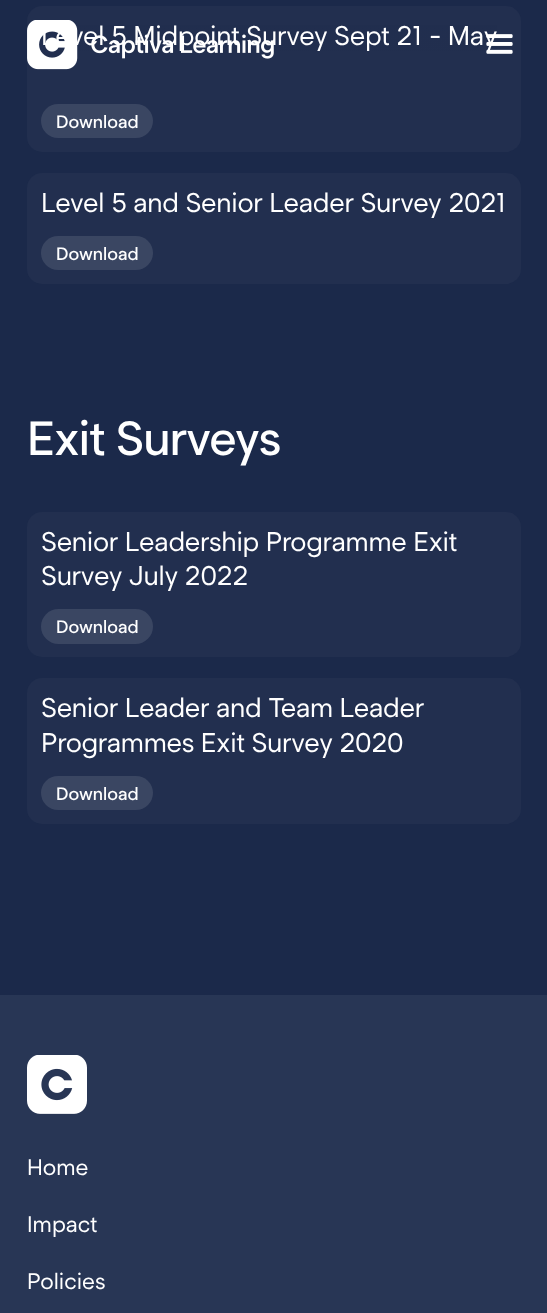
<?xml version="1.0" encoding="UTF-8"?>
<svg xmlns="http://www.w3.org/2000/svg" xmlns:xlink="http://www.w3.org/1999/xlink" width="547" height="1313">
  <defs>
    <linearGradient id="g1" gradientUnits="userSpaceOnUse" x1="274" y1="0" x2="274" y2="90"><stop offset="0" stop-color="#1b294a" stop-opacity="0.25" /><stop offset="1" stop-color="#1b294a" stop-opacity="0" /></linearGradient>
  </defs>
  <rect width="100%" height="100%" fill="#1b294a" />
  <rect x="27" y="6" width="494" height="146" rx="15" fill="#222f4f" />
  <rect x="43" y="25" width="454" height="26" fill="url(#g1)" />
  <rect x="41" y="104" width="112" height="34" rx="17" fill="#3a4662" />
  <rect x="27" y="173" width="494" height="111" rx="15" fill="#222f4f" />
  <rect x="41" y="236" width="112" height="34" rx="17" fill="#3a4662" />
  <rect x="27" y="512" width="494" height="145" rx="15" fill="#222f4f" />
  <rect x="41" y="609" width="112" height="35" rx="17.5" fill="#3a4662" />
  <rect x="27" y="678" width="494" height="146" rx="15" fill="#222f4f" />
  <rect x="41" y="776" width="112" height="34" rx="17" fill="#3a4662" />
  <rect y="995" width="547" height="318" fill="#283655" />
  <image x="27" y="1055" width="60" height="59" xlink:href="image3.png" />
  <text x="41" y="45" style="font-family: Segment; font-size: 27px; letter-spacing: -0.3px; fill: #ffffff">Level 5 Midpoint Survey Sept 21 - May</text>
  <image x="486" y="34" width="27" height="20" xlink:href="image2.png" />
  <image x="27" y="20" width="247" height="50" xlink:href="image1.png" />
  <text x="56" y="128" style="font-family: Segment; font-size: 18px; font-weight: 500; fill: #ffffff">Download</text>
  <text x="41" y="212" style="font-family: Segment; font-size: 27px; letter-spacing: -0.3px; fill: #ffffff">Level 5 and Senior Leader Survey 2021</text>
  <text x="56" y="260" style="font-family: Segment; font-size: 18px; font-weight: 500; fill: #ffffff">Download</text>
  <text x="27" y="455" style="font-family: Segment; font-size: 48px; font-weight: 500; letter-spacing: -0.9px; fill: #ffffff">Exit Surveys</text>
  <text x="41" y="551" style="font-family: Segment; font-size: 27px; letter-spacing: -0.3px; fill: #ffffff">Senior Leadership Programme Exit</text>
  <text x="41" y="585" style="font-family: Segment; font-size: 27px; letter-spacing: -0.3px; fill: #ffffff">Survey July 2022</text>
  <text x="56" y="633" style="font-family: Segment; font-size: 18px; font-weight: 500; fill: #ffffff">Download</text>
  <text x="41" y="717" style="font-family: Segment; font-size: 27px; letter-spacing: -0.3px; fill: #ffffff">Senior Leader and Team Leader</text>
  <text x="41" y="752" style="font-family: Segment; font-size: 27px; letter-spacing: -0.3px; fill: #ffffff">Programmes Exit Survey 2020</text>
  <text x="56" y="800" style="font-family: Segment; font-size: 18px; font-weight: 500; fill: #ffffff">Download</text>
  <text x="27" y="1175" style="font-family: Segment; font-size: 22.5px; fill: #ffffff">Home</text>
  <text x="27" y="1232" style="font-family: Segment; font-size: 22.5px; fill: #ffffff">Impact</text>
  <text x="27" y="1289" style="font-family: Segment; font-size: 22.5px; fill: #ffffff">Policies</text>
</svg>
